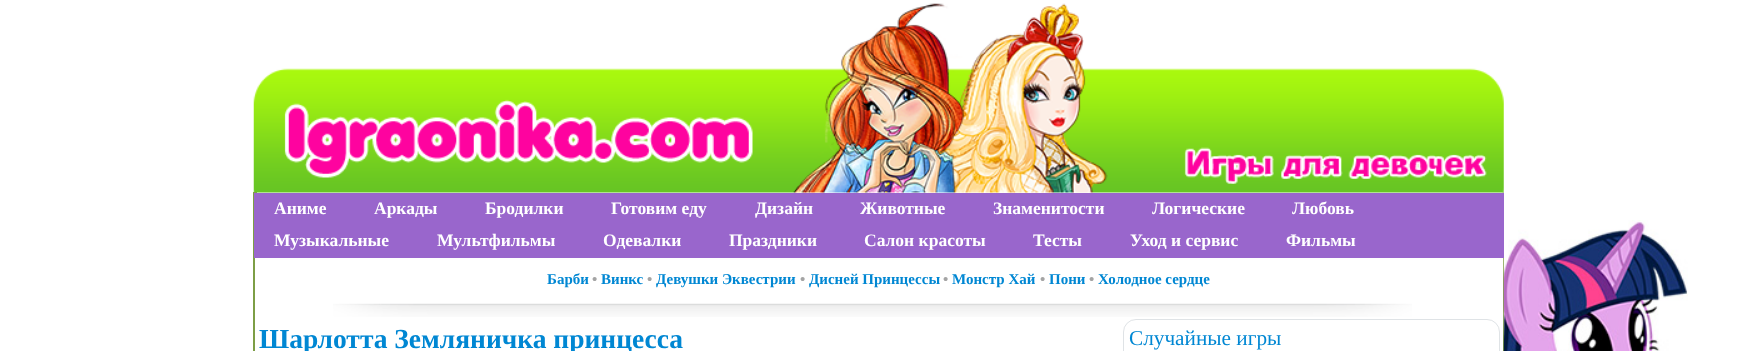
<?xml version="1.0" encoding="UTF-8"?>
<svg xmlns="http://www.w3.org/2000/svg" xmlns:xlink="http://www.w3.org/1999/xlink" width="1756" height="351">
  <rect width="100%" height="100%" fill="#ffffff" />
  <image x="1503" y="220" width="185" height="131" xlink:href="image1.png" />
  <image x="253" y="3" width="1251" height="190" xlink:href="image2.png" />
  <rect x="253" y="192" width="4" height="159" fill="#7d9e46" />
  <image x="1502" y="192" width="2" height="159" xlink:href="image3.png" />
  <rect x="254" y="193" width="1250" height="65" fill="#9966cc" />
  <rect x="255" y="258" width="1248" height="93" fill="#ffffff" />
  <image x="333" y="303" width="1079" height="14" xlink:href="image4.png" />
  <rect x="1123.5" y="319.5" width="376" height="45" rx="12.5" fill="none" stroke="#dfe3e6" />
  <text x="274" y="214" style="font-family: Liberation Serif; font-size: 17.5px; font-weight: bold; fill: #ffffff">Аниме</text>
  <text x="374" y="214" style="font-family: Liberation Serif; font-size: 17.5px; font-weight: bold; fill: #ffffff">Аркады</text>
  <text x="485" y="214" style="font-family: Liberation Serif; font-size: 17.5px; font-weight: bold; fill: #ffffff">Бродилки</text>
  <text x="611" y="214" style="font-family: Liberation Serif; font-size: 17.5px; font-weight: bold; fill: #ffffff">Готовим еду</text>
  <text x="755" y="214" style="font-family: Liberation Serif; font-size: 17.5px; font-weight: bold; fill: #ffffff">Дизайн</text>
  <text x="860" y="214" style="font-family: Liberation Serif; font-size: 17.5px; font-weight: bold; fill: #ffffff">Животные</text>
  <text x="993" y="214" style="font-family: Liberation Serif; font-size: 17.5px; font-weight: bold; fill: #ffffff">Знаменитости</text>
  <text x="1152" y="214" style="font-family: Liberation Serif; font-size: 17.5px; font-weight: bold; fill: #ffffff">Логические</text>
  <text x="1292" y="214" style="font-family: Liberation Serif; font-size: 17.5px; font-weight: bold; fill: #ffffff">Любовь</text>
  <text x="274" y="246" style="font-family: Liberation Serif; font-size: 17.5px; font-weight: bold; fill: #ffffff">Музыкальные</text>
  <text x="437" y="246" style="font-family: Liberation Serif; font-size: 17.5px; font-weight: bold; fill: #ffffff">Мультфильмы</text>
  <text x="603" y="246" style="font-family: Liberation Serif; font-size: 17.5px; font-weight: bold; fill: #ffffff">Одевалки</text>
  <text x="729" y="246" style="font-family: Liberation Serif; font-size: 17.5px; font-weight: bold; fill: #ffffff">Праздники</text>
  <text x="864" y="246" style="font-family: Liberation Serif; font-size: 17.5px; font-weight: bold; fill: #ffffff">Салон красоты</text>
  <text x="1033" y="246" style="font-family: Liberation Serif; font-size: 17.5px; font-weight: bold; fill: #ffffff">Тесты</text>
  <text x="1130" y="246" style="font-family: Liberation Serif; font-size: 17.5px; font-weight: bold; fill: #ffffff">Уход и сервис</text>
  <text x="1286" y="246" style="font-family: Liberation Serif; font-size: 17.5px; font-weight: bold; fill: #ffffff">Фильмы</text>
  <text x="547" y="284" style="font-family: Liberation Serif; font-size: 15px; font-weight: bold; fill: #0087d3">Барби</text>
  <text x="592" y="284" style="font-family: Liberation Serif; font-size: 15px; font-weight: bold; fill: #a4a4a4">•</text>
  <text x="601" y="284" style="font-family: Liberation Serif; font-size: 15px; font-weight: bold; fill: #0087d3">Винкс</text>
  <text x="647" y="284" style="font-family: Liberation Serif; font-size: 15px; font-weight: bold; fill: #a4a4a4">•</text>
  <text x="656" y="284" style="font-family: Liberation Serif; font-size: 15px; font-weight: bold; fill: #0087d3">Девушки Эквестрии</text>
  <text x="800" y="284" style="font-family: Liberation Serif; font-size: 15px; font-weight: bold; fill: #a4a4a4">•</text>
  <text x="809" y="284" style="font-family: Liberation Serif; font-size: 15px; font-weight: bold; fill: #0087d3">Дисней Принцессы</text>
  <text x="943" y="284" style="font-family: Liberation Serif; font-size: 15px; font-weight: bold; fill: #a4a4a4">•</text>
  <text x="952" y="284" style="font-family: Liberation Serif; font-size: 15px; font-weight: bold; fill: #0087d3">Монстр Хай</text>
  <text x="1040" y="284" style="font-family: Liberation Serif; font-size: 15px; font-weight: bold; fill: #a4a4a4">•</text>
  <text x="1049" y="284" style="font-family: Liberation Serif; font-size: 15px; font-weight: bold; fill: #0087d3">Пони</text>
  <text x="1089" y="284" style="font-family: Liberation Serif; font-size: 15px; font-weight: bold; fill: #a4a4a4">•</text>
  <text x="1098" y="284" style="font-family: Liberation Serif; font-size: 15px; font-weight: bold; fill: #0087d3">Холодное сердце</text>
  <text x="259" y="348" style="font-family: Liberation Serif; font-size: 27.5px; font-weight: bold; fill: #0087d3">Шарлотта Земляничка принцесса</text>
  <text x="1129" y="345" style="font-family: Liberation Serif; font-size: 21.25px; fill: #0087d3">Случайные игры</text>
</svg>
